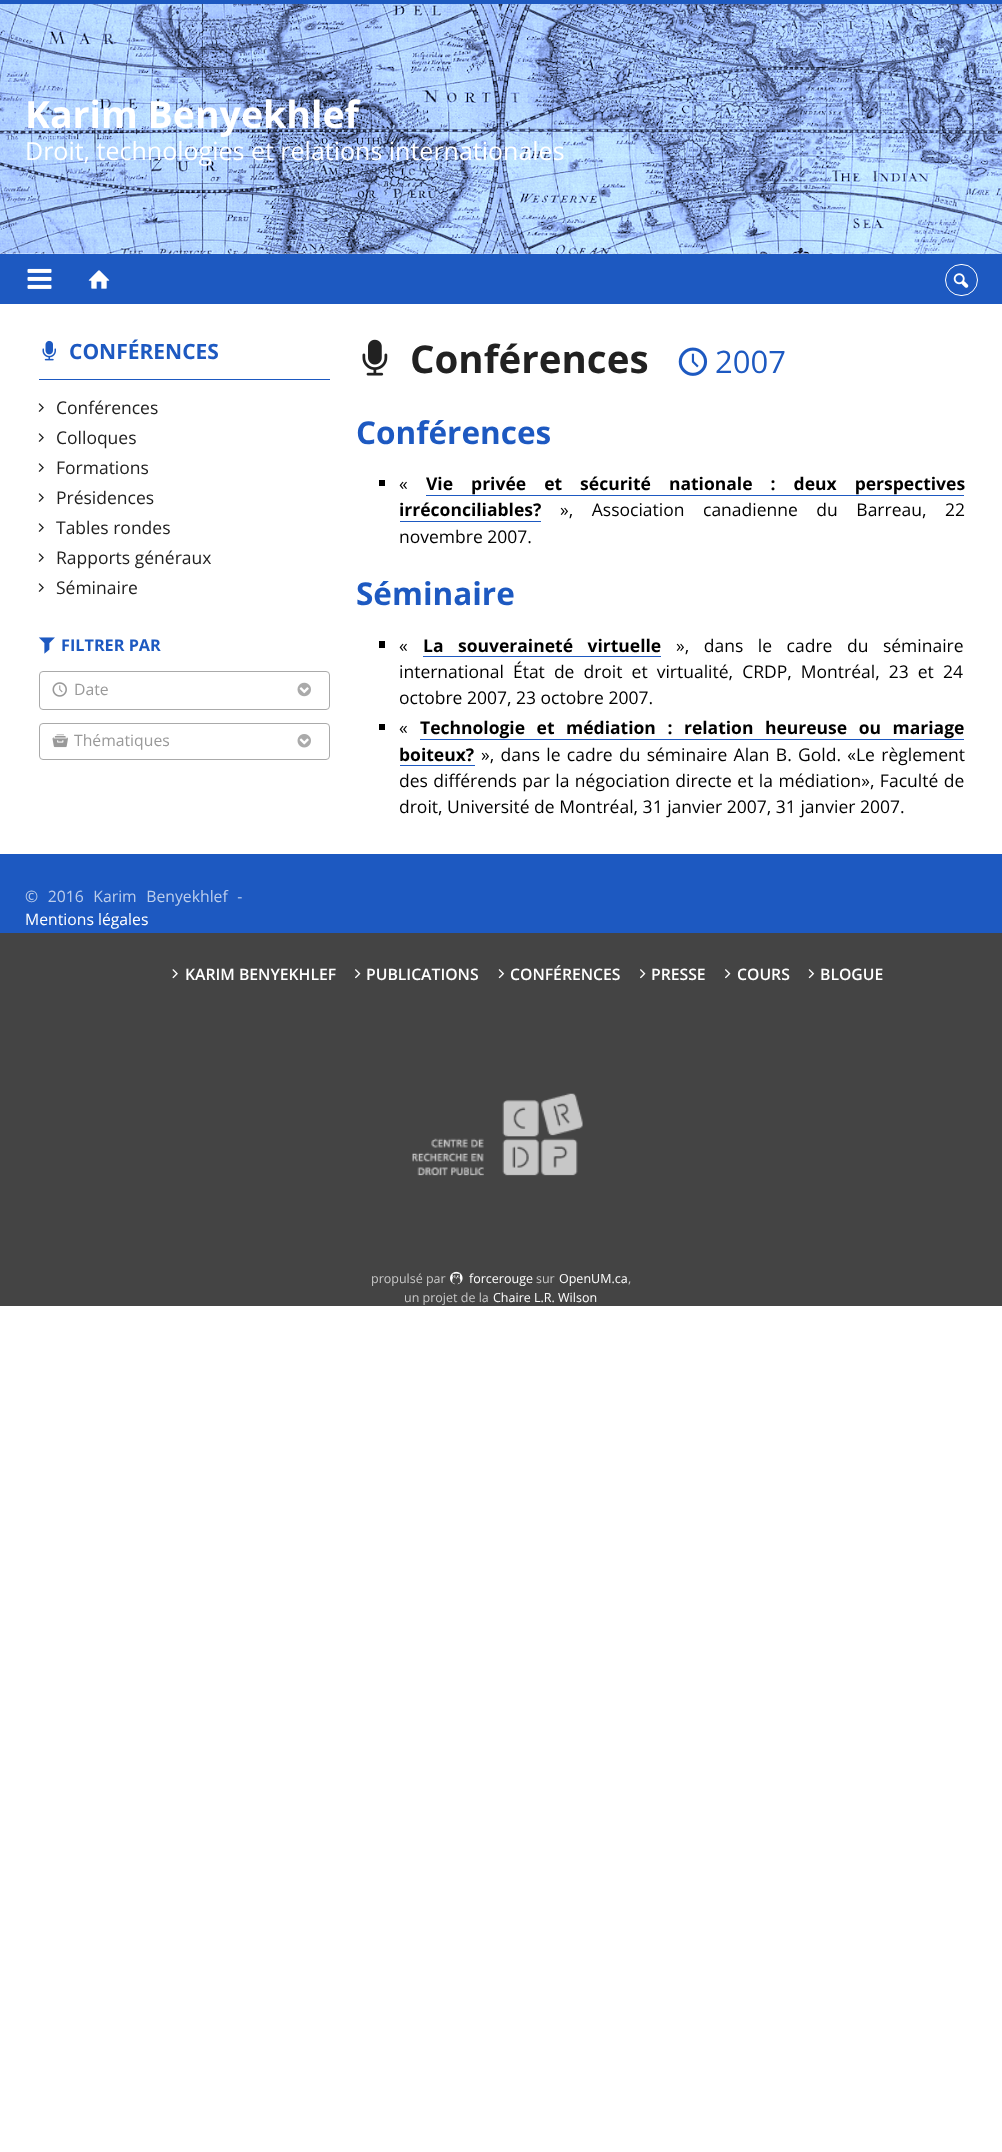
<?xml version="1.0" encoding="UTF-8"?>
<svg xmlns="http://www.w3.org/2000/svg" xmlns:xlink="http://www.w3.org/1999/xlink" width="1002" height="2152">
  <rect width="100%" height="100%" fill="#ffffff" />
  <image x="0" y="4" width="1002" height="250" xlink:href="image1.png" />
  <rect width="1002" height="4" fill="#1d59c1" />
  <rect y="254" width="1002" height="50" fill="#1d59c1" />
  <image x="27" y="268" width="25" height="21" xlink:href="image2.png" />
  <image x="88" y="270" width="22" height="19" xlink:href="image3.png" />
  <rect x="945.5" y="264.5" width="32" height="31" rx="15.5" fill="none" stroke="#ffffff" />
  <image x="953" y="273" width="16" height="15" xlink:href="image4.png" />
  <rect x="39" y="379" width="291" height="1" fill="#1d59c1" />
  <image x="42" y="340" width="14" height="21" xlink:href="image5.png" />
  <image x="38" y="403" width="6" height="9" xlink:href="image6.png" />
  <image x="38" y="433" width="6" height="9" xlink:href="image6.png" />
  <image x="38" y="463" width="6" height="9" xlink:href="image6.png" />
  <image x="38" y="493" width="6" height="9" xlink:href="image6.png" />
  <image x="38" y="523" width="6" height="9" xlink:href="image6.png" />
  <image x="38" y="553" width="6" height="9" xlink:href="image6.png" />
  <image x="38" y="583" width="6" height="9" xlink:href="image6.png" />
  <image x="38" y="637" width="17" height="17" xlink:href="image7.png" />
  <rect x="39.5" y="671.5" width="290" height="38" rx="3.5" fill="none" stroke="#aaaaaa" />
  <image x="52" y="682" width="15" height="15" xlink:href="image8.png" />
  <image x="297" y="682" width="14" height="15" xlink:href="image9.png" />
  <rect x="39.5" y="723.5" width="290" height="36" rx="3.5" fill="none" stroke="#aaaaaa" />
  <image x="52" y="734" width="16" height="14" xlink:href="image10.png" />
  <image x="297" y="734" width="14" height="14" xlink:href="image11.png" />
  <image x="362" y="339" width="26" height="37" xlink:href="image12.png" />
  <image x="678" y="347" width="30" height="29" xlink:href="image13.png" />
  <rect x="379" y="480" width="6" height="6" fill="#000000" />
  <rect x="426" y="495" width="538" height="1" fill="#1d59c1" />
  <rect x="400" y="521" width="141" height="1" fill="#1d59c1" />
  <rect x="379" y="641" width="6" height="7" fill="#000000" />
  <rect x="423" y="656" width="238" height="1" fill="#1d59c1" />
  <rect x="379" y="724" width="6" height="6" fill="#000000" />
  <rect x="420" y="739" width="544" height="1" fill="#1d59c1" />
  <rect x="400" y="765" width="75" height="1" fill="#1d59c1" />
  <rect y="933" width="1002" height="373" fill="#444444" />
  <rect y="854" width="1002" height="79" fill="#1d59c1" />
  <image x="172" y="969" width="6" height="10" xlink:href="image14.png" />
  <image x="355" y="969" width="6" height="10" xlink:href="image15.png" />
  <image x="498" y="969" width="7" height="10" xlink:href="image16.png" />
  <image x="640" y="969" width="6" height="10" xlink:href="image15.png" />
  <image x="725" y="969" width="6" height="10" xlink:href="image15.png" />
  <image x="808" y="969" width="7" height="10" xlink:href="image16.png" />
  <image x="412" y="1093" width="171" height="83" xlink:href="image17.png" />
  <image x="450" y="1271" width="13" height="14" xlink:href="image18.png" />
  <text x="25" y="128" style="font-family: Open Sans; font-size: 37.5px; font-weight: bold; fill: #ffffff">Karim Benyekhlef</text>
  <text x="25" y="160" style="font-family: Open Sans; font-size: 25px; fill: #ffffff">Droit, technologies et relations internationales</text>
  <text x="69" y="359" style="font-family: Open Sans; font-size: 21px; font-weight: bold; fill: #1d59c1">CONFÉRENCES</text>
  <text x="56" y="414" style="font-family: Open Sans; font-size: 17.5px; fill: #212121">Conférences</text>
  <text x="56" y="444" style="font-family: Open Sans; font-size: 17.5px; fill: #212121">Colloques</text>
  <text x="56" y="474" style="font-family: Open Sans; font-size: 17.5px; fill: #212121">Formations</text>
  <text x="56" y="504" style="font-family: Open Sans; font-size: 17.5px; fill: #212121">Présidences</text>
  <text x="56" y="534" style="font-family: Open Sans; font-size: 17.5px; fill: #212121">Tables rondes</text>
  <text x="56" y="564" style="font-family: Open Sans; font-size: 17.5px; fill: #212121">Rapports généraux</text>
  <text x="56" y="594" style="font-family: Open Sans; font-size: 17.5px; fill: #212121">Séminaire</text>
  <text x="61" y="651" style="font-family: Open Sans; font-size: 16.25px; font-weight: bold; fill: #1d59c1">FILTRER PAR</text>
  <text x="74" y="695" style="font-family: Open Sans; font-size: 15.75px; fill: #999999">Date</text>
  <text x="74" y="746" style="font-family: Open Sans; font-size: 15.75px; fill: #999999">Thématiques</text>
  <text x="410" y="373" style="font-family: Open Sans; font-size: 38.5px; font-weight: bold; fill: #212121">Conférences</text>
  <text x="715" y="373" style="font-family: Open Sans; font-size: 31px; fill: #1d59c1">2007</text>
  <text x="356" y="444" style="font-family: Open Sans; font-size: 31.5px; font-weight: bold; fill: #1d59c1">Conférences</text>
  <text x="399" y="490" style="font-family: Open Sans; font-size: 17.5px; fill: #000000">«</text>
  <text x="426" y="490" word-spacing="13.5" style="font-family: Open Sans; font-size: 17.5px; font-weight: bold; fill: #000000">Vie privée et sécurité nationale : deux perspectives</text>
  <text x="399" y="516" style="font-family: Open Sans; font-size: 17.5px; font-weight: bold; fill: #000000">irréconciliables?</text>
  <text x="560" y="516" word-spacing="14" style="font-family: Open Sans; font-size: 17.5px; fill: #000000">», Association canadienne du Barreau, 22</text>
  <text x="399" y="543" style="font-family: Open Sans; font-size: 17.5px; fill: #000000">novembre 2007.</text>
  <text x="356" y="605" style="font-family: Open Sans; font-size: 31.5px; font-weight: bold; fill: #1d59c1">Séminaire</text>
  <text x="399" y="652" style="font-family: Open Sans; font-size: 17.5px; fill: #000000">«</text>
  <text x="423" y="652" word-spacing="10" style="font-family: Open Sans; font-size: 17.5px; font-weight: bold; fill: #000000">La souveraineté virtuelle</text>
  <text x="676" y="652" word-spacing="10" style="font-family: Open Sans; font-size: 17.5px; fill: #000000">», dans le cadre du séminaire</text>
  <text x="399" y="678" word-spacing="4.5" style="font-family: Open Sans; font-size: 17.5px; fill: #000000">international État de droit et virtualité, CRDP, Montréal, 23 et 24</text>
  <text x="399" y="704" style="font-family: Open Sans; font-size: 17.5px; fill: #000000">octobre 2007, 23 octobre 2007.</text>
  <text x="399" y="734" style="font-family: Open Sans; font-size: 17.5px; fill: #000000">«</text>
  <text x="420" y="734" word-spacing="7" style="font-family: Open Sans; font-size: 17.5px; font-weight: bold; fill: #000000">Technologie et médiation : relation heureuse ou mariage</text>
  <text x="399" y="761" style="font-family: Open Sans; font-size: 17.5px; font-weight: bold; fill: #000000">boiteux?</text>
  <text x="481" y="761" word-spacing="1.75" style="font-family: Open Sans; font-size: 17.5px; fill: #000000">», dans le cadre du séminaire Alan B. Gold. «Le règlement</text>
  <text x="399" y="787" word-spacing="0.9" style="font-family: Open Sans; font-size: 17.5px; fill: #000000">des différends par la négociation directe et la médiation», Faculté de</text>
  <text x="399" y="813" style="font-family: Open Sans; font-size: 17.5px; fill: #000000">droit, Université de Montréal, 31 janvier 2007, 31 janvier 2007.</text>
  <text x="25" y="902" word-spacing="5.5" style="font-family: Open Sans; font-size: 15.75px; fill: #bbcdec">© 2016 Karim Benyekhlef -</text>
  <text x="25" y="925" style="font-family: Open Sans; font-size: 15.75px; fill: #ffffff">Mentions légales</text>
  <text x="185" y="980" style="font-family: Open Sans; font-size: 15.75px; font-weight: 600; fill: #ffffff">KARIM BENYEKHLEF</text>
  <text x="366" y="980" style="font-family: Open Sans; font-size: 15.75px; font-weight: 600; fill: #ffffff">PUBLICATIONS</text>
  <text x="510" y="980" style="font-family: Open Sans; font-size: 15.75px; font-weight: 600; fill: #ffffff">CONFÉRENCES</text>
  <text x="651" y="980" style="font-family: Open Sans; font-size: 15.75px; font-weight: 600; fill: #ffffff">PRESSE</text>
  <text x="737" y="980" style="font-family: Open Sans; font-size: 15.75px; font-weight: 600; fill: #ffffff">COURS</text>
  <text x="820" y="980" style="font-family: Open Sans; font-size: 15.75px; font-weight: 600; fill: #ffffff">BLOGUE</text>
  <text x="371" y="1283" style="font-family: Open Sans; font-size: 12.5px; fill: #c7c7c7">propulsé par</text>
  <text x="469" y="1283" style="font-family: Open Sans; font-size: 12.5px; fill: #ffffff">forcerouge</text>
  <text x="536" y="1283" style="font-family: Open Sans; font-size: 12.5px; fill: #c7c7c7">sur</text>
  <text x="559" y="1283" style="font-family: Open Sans; font-size: 12.5px; fill: #ffffff">OpenUM.ca</text>
  <text x="628" y="1283" style="font-family: Open Sans; font-size: 12.5px; fill: #c7c7c7">,</text>
  <text x="404" y="1302" style="font-family: Open Sans; font-size: 12.5px; fill: #c7c7c7">un projet de la</text>
  <text x="493" y="1302" style="font-family: Open Sans; font-size: 12.5px; fill: #ffffff">Chaire L.R. Wilson</text>
</svg>
